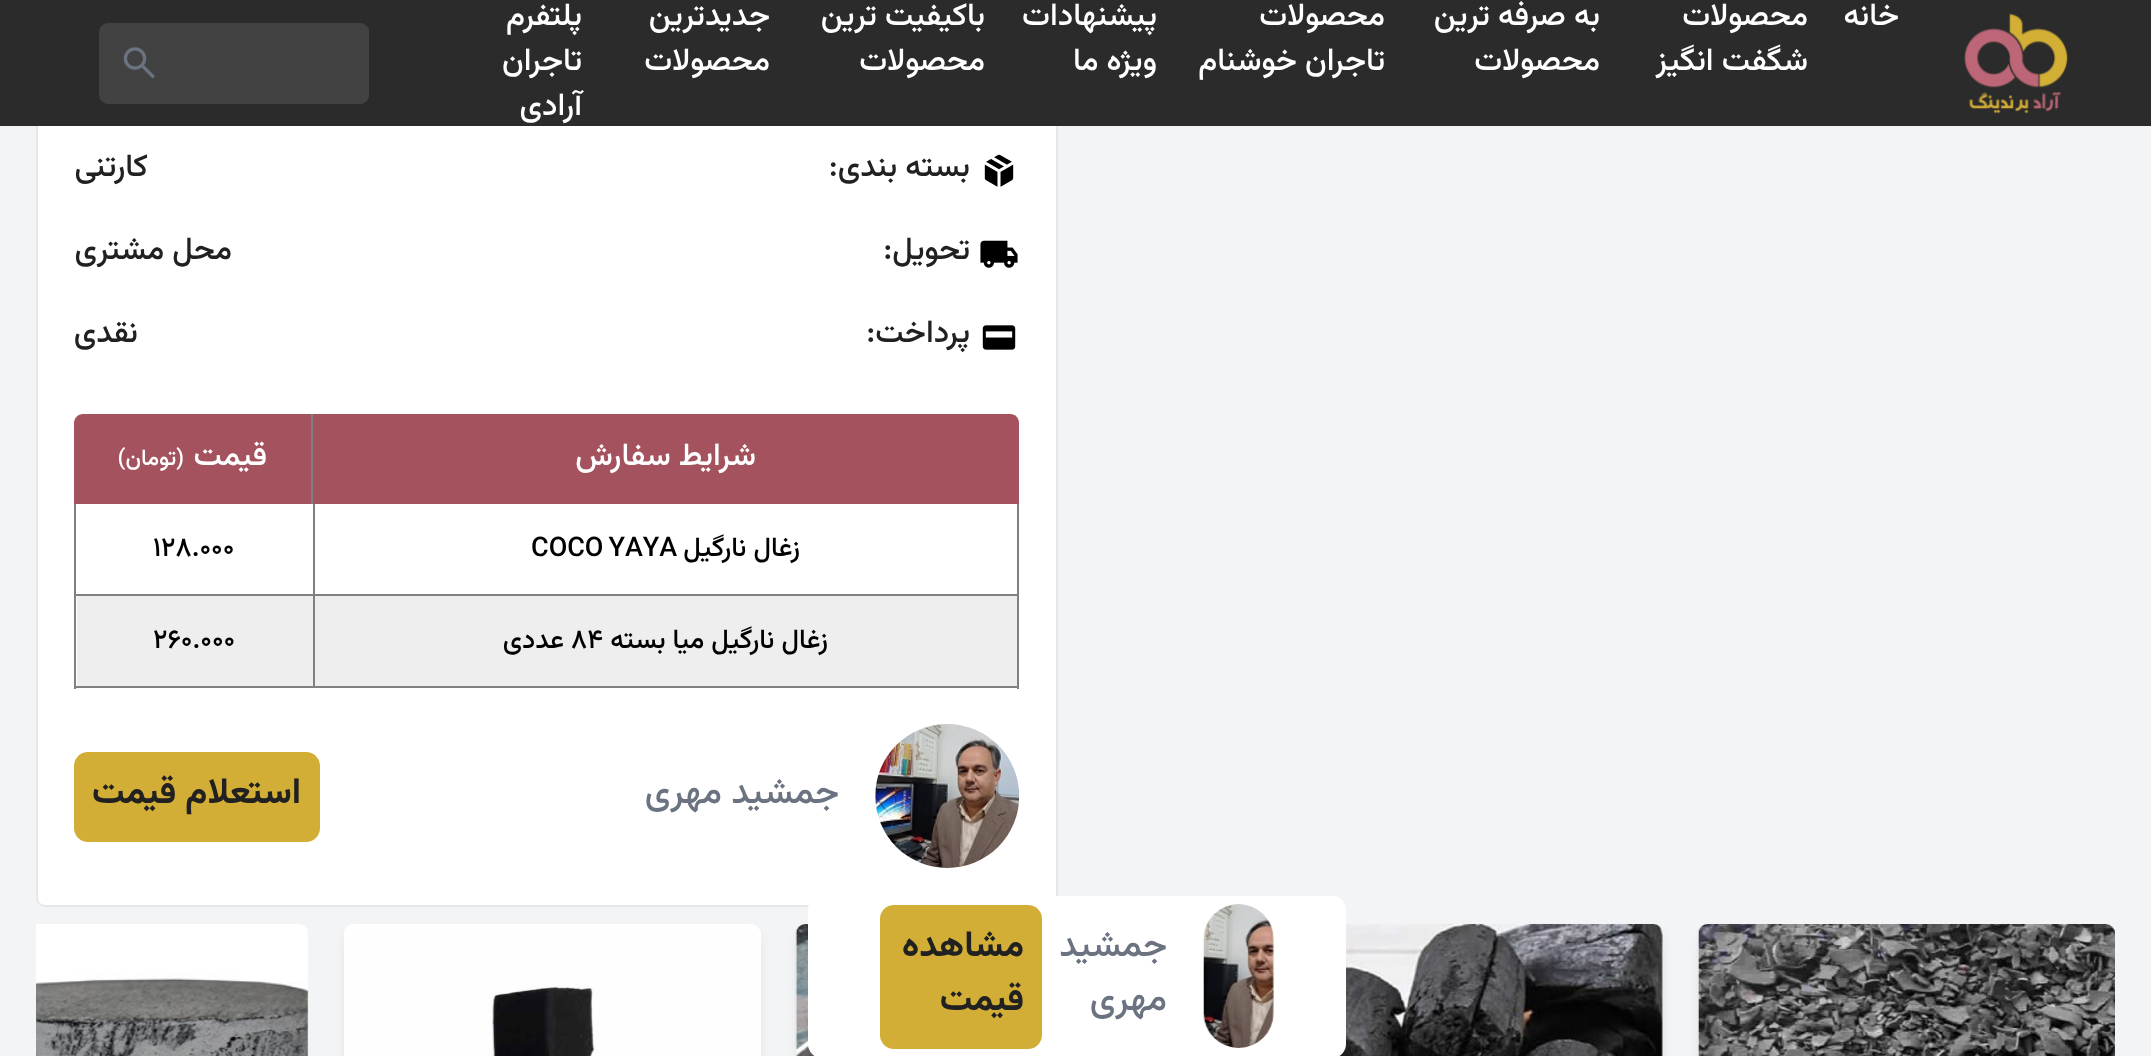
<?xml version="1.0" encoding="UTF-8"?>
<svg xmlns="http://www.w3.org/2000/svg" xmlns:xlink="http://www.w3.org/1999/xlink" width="2151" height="1056">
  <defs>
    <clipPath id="clip1"><rect x="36" y="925" width="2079" height="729" /></clipPath>
  </defs>
  <rect width="100%" height="100%" fill="#f3f4f6" />
  <rect x="37" y="-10" width="1020" height="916" rx="8" fill="#ffffff" stroke="#e5e7eb" stroke-width="2" />
  <rect width="2151" height="126" fill="#2b2b2b" />
  <image x="1964" y="13" width="104" height="101" xlink:href="image1.png" />
  <rect x="99" y="23" width="270" height="81" rx="9" fill="#424242" />
  <rect x="180" y="23" width="189" height="81" rx="9" fill="#424242" />
  <image x="123" y="47" width="32" height="31" xlink:href="image2.png" />
  <image x="984" y="154" width="30" height="33" xlink:href="image3.png" />
  <image x="980" y="240" width="38" height="28" xlink:href="image4.png" />
  <image x="982" y="325" width="34" height="25" xlink:href="image5.png" />
  <path d="M 313 414 h 697 c 5 0 9 4 9 9 v 81 h -706 z" fill="#a5525f" />
  <rect x="311" y="414" width="2" height="90" fill="#808080" />
  <path d="M 83 414 h 228 v 90 h -237 v -81 c 0 -5 4 -9 9 -9 z" fill="#a5525f" />
  <rect x="1017" y="504" width="2" height="185" fill="#808080" />
  <rect x="74" y="594" width="945" height="2" fill="#808080" />
  <rect x="74" y="504" width="2" height="92" fill="#808080" />
  <rect x="313" y="504" width="2" height="90" fill="#808080" />
  <rect x="77" y="596" width="940" height="90" fill="#eeeeee" />
  <rect x="74" y="686" width="945" height="2" fill="#808080" />
  <rect x="74" y="596" width="2" height="93" fill="#808080" />
  <rect x="313" y="596" width="2" height="90" fill="#808080" />
  <image x="875" y="724" width="145" height="144" xlink:href="image6.png" />
  <rect x="74" y="752" width="246" height="90" rx="14" fill="#d3ae36" />
  <g clip-path="url(#clip1)">
    <rect x="1701" y="936" width="412" height="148" rx="7" fill="#000000" fill-opacity="0.1" filter="blur(7px)" />
  </g>
  <image x="1698" y="924" width="417" height="132" xlink:href="image7.png" />
  <rect x="1249" y="936" width="412" height="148" rx="7" fill="#000000" fill-opacity="0.1" filter="blur(7px)" />
  <rect x="1247" y="925" width="416" height="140" rx="9" fill="#ffffff" />
  <image x="1339" y="924" width="324" height="132" xlink:href="image8.png" />
  <rect x="799" y="936" width="409" height="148" rx="7" fill="#000000" fill-opacity="0.1" filter="blur(7px)" />
  <image x="795" y="924" width="20" height="132" xlink:href="image9.png" />
  <rect x="347" y="936" width="411" height="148" rx="7" fill="#000000" fill-opacity="0.1" filter="blur(7px)" />
  <rect x="344" y="925" width="417" height="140" rx="9" fill="#ffffff" />
  <image x="344" y="924" width="414" height="132" xlink:href="image10.png" />
  <image x="36" y="924" width="273" height="132" xlink:href="image11.png" />
  <rect x="808" y="896" width="538" height="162" rx="14" fill="#ffffff" />
  <image x="1203" y="904" width="71" height="144" xlink:href="image12.png" />
  <rect x="880" y="905" width="162" height="144" rx="14" fill="#d3ae36" />
  <text x="1899" y="25" style="font-family: Vazirmatn; font-size: 31.5px; font-weight: 500; direction: rtl; fill: #ffffff">خانه</text>
  <text x="1808" y="25" style="font-family: Vazirmatn; font-size: 31.5px; font-weight: 500; direction: rtl; fill: #ffffff">محصولات</text>
  <text x="1808" y="70" style="font-family: Vazirmatn; font-size: 31.5px; font-weight: 500; direction: rtl; fill: #ffffff">شگفت انگیز</text>
  <text x="1600" y="25" style="font-family: Vazirmatn; font-size: 31.5px; font-weight: 500; direction: rtl; fill: #ffffff">به صرفه ترین</text>
  <text x="1600" y="70" style="font-family: Vazirmatn; font-size: 31.5px; font-weight: 500; direction: rtl; fill: #ffffff">محصولات</text>
  <text x="1385" y="25" style="font-family: Vazirmatn; font-size: 31.5px; font-weight: 500; direction: rtl; fill: #ffffff">محصولات</text>
  <text x="1385" y="70" style="font-family: Vazirmatn; font-size: 31.5px; font-weight: 500; direction: rtl; fill: #ffffff">تاجران خوشنام</text>
  <text x="1157" y="25" style="font-family: Vazirmatn; font-size: 31.5px; font-weight: 500; direction: rtl; fill: #ffffff">پیشنهادات</text>
  <text x="1157" y="70" style="font-family: Vazirmatn; font-size: 31.5px; font-weight: 500; direction: rtl; fill: #ffffff">ویژه ما</text>
  <text x="985" y="25" style="font-family: Vazirmatn; font-size: 31.5px; font-weight: 500; direction: rtl; fill: #ffffff">باکیفیت ترین</text>
  <text x="985" y="70" style="font-family: Vazirmatn; font-size: 31.5px; font-weight: 500; direction: rtl; fill: #ffffff">محصولات</text>
  <text x="770" y="25" style="font-family: Vazirmatn; font-size: 31.5px; font-weight: 500; direction: rtl; fill: #ffffff">جدیدترین</text>
  <text x="770" y="70" style="font-family: Vazirmatn; font-size: 31.5px; font-weight: 500; direction: rtl; fill: #ffffff">محصولات</text>
  <text x="582" y="25" style="font-family: Vazirmatn; font-size: 31.5px; font-weight: 500; direction: rtl; fill: #ffffff">پلتفرم</text>
  <text x="582" y="70" style="font-family: Vazirmatn; font-size: 31.5px; font-weight: 500; direction: rtl; fill: #ffffff">تاجران</text>
  <text x="582" y="115" style="font-family: Vazirmatn; font-size: 31.5px; font-weight: 500; direction: rtl; fill: #ffffff">آرادی</text>
  <text x="970" y="176" style="font-family: Vazirmatn; font-size: 31.5px; font-weight: 500; direction: rtl; fill: #212121">بسته‌ بندی:</text>
  <text x="148" y="176" style="font-family: Vazirmatn; font-size: 31.5px; font-weight: 500; direction: rtl; fill: #212121">کارتنی</text>
  <text x="970" y="259" style="font-family: Vazirmatn; font-size: 31.5px; font-weight: 500; direction: rtl; fill: #212121">تحویل:</text>
  <text x="232" y="259" style="font-family: Vazirmatn; font-size: 31.5px; font-weight: 500; direction: rtl; fill: #212121">محل مشتری</text>
  <text x="970" y="342" style="font-family: Vazirmatn; font-size: 31.5px; font-weight: 500; direction: rtl; fill: #212121">پرداخت:</text>
  <text x="138" y="342" style="font-family: Vazirmatn; font-size: 31.5px; font-weight: 500; direction: rtl; fill: #212121">نقدی</text>
  <text x="756" y="465" style="font-family: Vazirmatn; font-size: 31.5px; font-weight: 500; direction: rtl; fill: #ffffff">شرایط سفارش</text>
  <text x="267" y="465" style="font-family: Vazirmatn; font-size: 31.5px; font-weight: 500; direction: rtl; fill: #ffffff">قیمت</text>
  <text x="184" y="465" style="font-family: Vazirmatn; font-size: 22.5px; font-weight: 500; direction: rtl; fill: #ffffff">(تومان)</text>
  <text x="800" y="556" style="font-family: Vazirmatn; font-size: 27px; font-weight: 500; direction: rtl; fill: #000000">زغال نارگیل</text>
  <text x="531" y="556" word-spacing="-2" style="font-family: Vazirmatn; font-size: 27px; font-weight: 500; fill: #000000">COCO YAYA</text>
  <text x="153" y="556" style="font-family: Vazirmatn; font-size: 27px; font-weight: 500; fill: #000000">۱۲۸.۰۰۰</text>
  <text x="828" y="648" style="font-family: Vazirmatn; font-size: 27px; font-weight: 500; direction: rtl; fill: #000000">زغال نارگیل میا بسته</text>
  <text x="571" y="648" style="font-family: Vazirmatn; font-size: 27px; font-weight: 500; fill: #000000">۸۴</text>
  <text x="564" y="648" style="font-family: Vazirmatn; font-size: 27px; font-weight: 500; direction: rtl; fill: #000000">عددی</text>
  <text x="153" y="648" style="font-family: Vazirmatn; font-size: 27px; font-weight: 500; fill: #000000">۲۶۰.۰۰۰</text>
  <text x="839" y="803" style="font-family: Vazirmatn; font-size: 36px; font-weight: 500; direction: rtl; fill: #6b7280">جمشید مهری</text>
  <text x="301" y="803" style="font-family: Vazirmatn; font-size: 36px; font-weight: bold; direction: rtl; fill: #212121">استعلام قیمت</text>
  <text x="1167" y="956" style="font-family: Vazirmatn; font-size: 36px; font-weight: 500; direction: rtl; fill: #6b7280">جمشید</text>
  <text x="1167" y="1010" style="font-family: Vazirmatn; font-size: 36px; font-weight: 500; direction: rtl; fill: #6b7280">مهری</text>
  <text x="1024" y="956" style="font-family: Vazirmatn; font-size: 36px; font-weight: bold; direction: rtl; fill: #212121">مشاهده</text>
  <text x="1024" y="1010" style="font-family: Vazirmatn; font-size: 36px; font-weight: bold; direction: rtl; fill: #212121">قیمت</text>
</svg>
